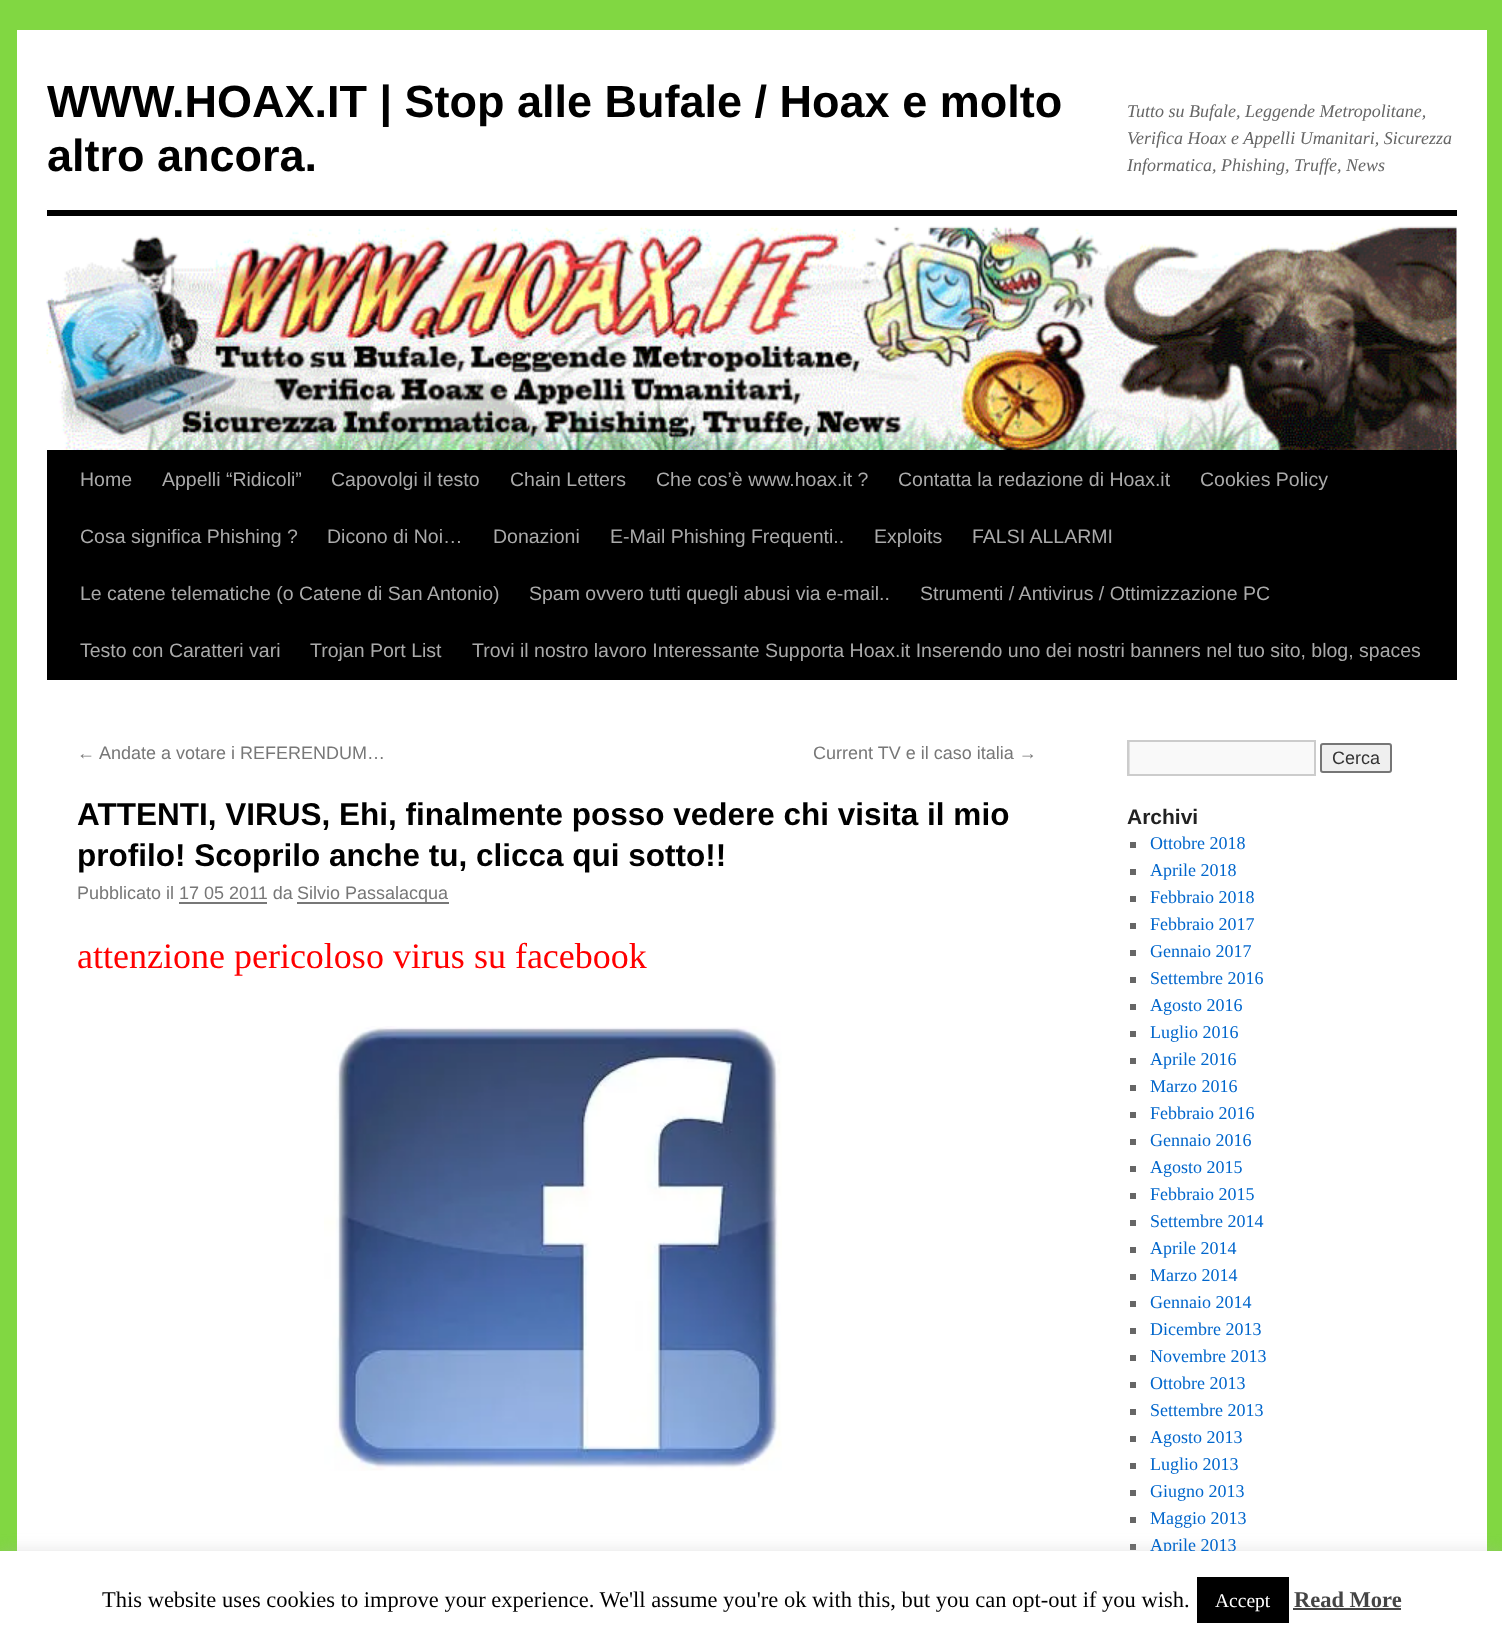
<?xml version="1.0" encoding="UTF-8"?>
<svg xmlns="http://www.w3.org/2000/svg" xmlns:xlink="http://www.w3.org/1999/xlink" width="1502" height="1640">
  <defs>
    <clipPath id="clip1"><rect x="1128" y="741" width="186" height="33" /></clipPath>
  </defs>
  <rect width="100%" height="100%" fill="#81d742" />
  <rect x="17" y="30" width="1470" height="1521" fill="#ffffff" />
  <rect x="47" y="210" width="1410" height="6" fill="#000000" />
  <rect x="47" y="450" width="1410" height="230" fill="#000000" />
  <image x="46" y="226" width="1411" height="224" xlink:href="image1.png" />
  <rect x="297" y="902" width="152" height="2" fill="#777777" />
  <rect x="179" y="902" width="88" height="2" fill="#777777" />
  <image x="324" y="1026" width="458" height="445" xlink:href="image2.png" />
  <rect x="1130" y="742" width="184" height="32" fill="#f9f9f9" />
  <g clip-path="url(#clip1)">
    <path d="M 980 592 h 482 v 330 h -482 z m 150 150 h 186 v 34 h -186 z" fill="#e0e0e0" fill-rule="evenodd" />
  </g>
  <rect x="1128" y="741" width="187" height="34" fill="none" stroke="#cccccc" stroke-width="2" />
  <rect x="1321" y="744" width="70" height="28" rx="2" fill="#efefef" stroke="#767676" stroke-width="2" />
  <rect x="1130" y="842" width="6" height="6" fill="#666666" />
  <rect x="1130" y="869" width="6" height="6" fill="#666666" />
  <rect x="1130" y="896" width="6" height="6" fill="#666666" />
  <rect x="1130" y="923" width="6" height="6" fill="#666666" />
  <rect x="1130" y="950" width="6" height="6" fill="#666666" />
  <rect x="1130" y="977" width="6" height="6" fill="#666666" />
  <rect x="1130" y="1004" width="6" height="6" fill="#666666" />
  <rect x="1130" y="1031" width="6" height="6" fill="#666666" />
  <rect x="1130" y="1058" width="6" height="6" fill="#666666" />
  <rect x="1130" y="1085" width="6" height="6" fill="#666666" />
  <rect x="1130" y="1112" width="6" height="6" fill="#666666" />
  <rect x="1130" y="1139" width="6" height="6" fill="#666666" />
  <rect x="1130" y="1166" width="6" height="6" fill="#666666" />
  <rect x="1130" y="1193" width="6" height="6" fill="#666666" />
  <rect x="1130" y="1220" width="6" height="6" fill="#666666" />
  <rect x="1130" y="1247" width="6" height="6" fill="#666666" />
  <rect x="1130" y="1274" width="6" height="6" fill="#666666" />
  <rect x="1130" y="1301" width="6" height="6" fill="#666666" />
  <rect x="1130" y="1328" width="6" height="6" fill="#666666" />
  <rect x="1130" y="1355" width="6" height="6" fill="#666666" />
  <rect x="1130" y="1382" width="6" height="6" fill="#666666" />
  <rect x="1130" y="1409" width="6" height="6" fill="#666666" />
  <rect x="1130" y="1436" width="6" height="6" fill="#666666" />
  <rect x="1130" y="1463" width="6" height="6" fill="#666666" />
  <rect x="1130" y="1490" width="6" height="6" fill="#666666" />
  <rect x="1130" y="1517" width="6" height="6" fill="#666666" />
  <rect x="1130" y="1544" width="6" height="6" fill="#666666" />
  <rect y="1550" width="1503" height="90" fill="#acabab" fill-opacity="0.3" filter="blur(7.5px)" />
  <text x="47" y="117" style="font-family: Liberation Sans; font-size: 45px; font-weight: bold; fill: #000000">WWW.HOAX.IT | Stop alle Bufale / Hoax e molto</text>
  <text x="47" y="171" style="font-family: Liberation Sans; font-size: 45px; font-weight: bold; fill: #000000">altro ancora.</text>
  <text x="1127" y="117" style="font-family: Liberation Serif; font-size: 18px; font-style: italic; fill: #666666">Tutto su Bufale, Leggende Metropolitane,</text>
  <text x="1127" y="144" style="font-family: Liberation Serif; font-size: 18px; font-style: italic; fill: #666666">Verifica Hoax e Appelli Umanitari, Sicurezza</text>
  <text x="1127" y="171" style="font-family: Liberation Serif; font-size: 18px; font-style: italic; fill: #666666">Informatica, Phishing, Truffe, News</text>
  <text x="80" y="486" style="font-family: Liberation Sans; font-size: 19.5px; fill: #aaaaaa">Home</text>
  <text x="162" y="486" style="font-family: Liberation Sans; font-size: 19.5px; fill: #aaaaaa">Appelli “Ridicoli”</text>
  <text x="331" y="486" style="font-family: Liberation Sans; font-size: 19.5px; fill: #aaaaaa">Capovolgi il testo</text>
  <text x="510" y="486" style="font-family: Liberation Sans; font-size: 19.5px; fill: #aaaaaa">Chain Letters</text>
  <text x="656" y="486" style="font-family: Liberation Sans; font-size: 19.5px; fill: #aaaaaa">Che cos’è www.hoax.it ?</text>
  <text x="898" y="486" style="font-family: Liberation Sans; font-size: 19.5px; fill: #aaaaaa">Contatta la redazione di Hoax.it</text>
  <text x="1200" y="486" style="font-family: Liberation Sans; font-size: 19.5px; fill: #aaaaaa">Cookies Policy</text>
  <text x="80" y="543" style="font-family: Liberation Sans; font-size: 19.5px; fill: #aaaaaa">Cosa significa Phishing ?</text>
  <text x="327" y="543" style="font-family: Liberation Sans; font-size: 19.5px; fill: #aaaaaa">Dicono di Noi…</text>
  <text x="493" y="543" style="font-family: Liberation Sans; font-size: 19.5px; fill: #aaaaaa">Donazioni</text>
  <text x="610" y="543" style="font-family: Liberation Sans; font-size: 19.5px; fill: #aaaaaa">E-Mail Phishing Frequenti..</text>
  <text x="874" y="543" style="font-family: Liberation Sans; font-size: 19.5px; fill: #aaaaaa">Exploits</text>
  <text x="972" y="543" style="font-family: Liberation Sans; font-size: 19.5px; fill: #aaaaaa">FALSI ALLARMI</text>
  <text x="80" y="600" style="font-family: Liberation Sans; font-size: 19.5px; fill: #aaaaaa">Le catene telematiche (o Catene di San Antonio)</text>
  <text x="529" y="600" style="font-family: Liberation Sans; font-size: 19.5px; fill: #aaaaaa">Spam ovvero tutti quegli abusi via e-mail..</text>
  <text x="920" y="600" style="font-family: Liberation Sans; font-size: 19.5px; fill: #aaaaaa">Strumenti / Antivirus / Ottimizzazione PC</text>
  <text x="80" y="657" style="font-family: Liberation Sans; font-size: 19.5px; fill: #aaaaaa">Testo con Caratteri vari</text>
  <text x="310" y="657" style="font-family: Liberation Sans; font-size: 19.5px; fill: #aaaaaa">Trojan Port List</text>
  <text x="472" y="657" style="font-family: Liberation Sans; font-size: 19.5px; fill: #aaaaaa">Trovi il nostro lavoro Interessante Supporta Hoax.it Inserendo uno dei nostri banners nel tuo sito, blog, spaces</text>
  <text x="77" y="759" style="font-family: Liberation Sans; font-size: 18px; fill: #777777">←</text>
  <text x="99" y="759" style="font-family: Liberation Sans; font-size: 18px; fill: #777777">Andate a votare i REFERENDUM…</text>
  <text x="813" y="759" style="font-family: Liberation Sans; font-size: 18px; fill: #777777">Current TV e il caso italia →</text>
  <text x="77" y="825" style="font-family: Liberation Sans; font-size: 31.5px; font-weight: bold; fill: #000000">ATTENTI, VIRUS, Ehi, finalmente posso vedere chi visita il mio</text>
  <text x="77" y="866" style="font-family: Liberation Sans; font-size: 31.5px; font-weight: bold; fill: #000000">profilo! Scoprilo anche tu, clicca qui sotto!!</text>
  <text x="77" y="899" style="font-family: Liberation Sans; font-size: 18px; fill: #777777">Pubblicato il 17 05 2011 da</text>
  <text x="297" y="899" style="font-family: Liberation Sans; font-size: 18px; fill: #777777">Silvio Passalacqua</text>
  <text x="77" y="968" style="font-family: Liberation Serif; font-size: 36px; fill: #ff0000">attenzione pericoloso virus su facebook</text>
  <text x="1332" y="764" style="font-family: Liberation Sans; font-size: 18px; fill: #333333">Cerca</text>
  <text x="1127" y="824" style="font-family: Liberation Sans; font-size: 21px; font-weight: bold; fill: #222222">Archivi</text>
  <text x="1150" y="849" style="font-family: Liberation Serif; font-size: 18px; fill: #0066cc">Ottobre 2018</text>
  <text x="1150" y="876" style="font-family: Liberation Serif; font-size: 18px; fill: #0066cc">Aprile 2018</text>
  <text x="1150" y="903" style="font-family: Liberation Serif; font-size: 18px; fill: #0066cc">Febbraio 2018</text>
  <text x="1150" y="930" style="font-family: Liberation Serif; font-size: 18px; fill: #0066cc">Febbraio 2017</text>
  <text x="1150" y="957" style="font-family: Liberation Serif; font-size: 18px; fill: #0066cc">Gennaio 2017</text>
  <text x="1150" y="984" style="font-family: Liberation Serif; font-size: 18px; fill: #0066cc">Settembre 2016</text>
  <text x="1150" y="1011" style="font-family: Liberation Serif; font-size: 18px; fill: #0066cc">Agosto 2016</text>
  <text x="1150" y="1038" style="font-family: Liberation Serif; font-size: 18px; fill: #0066cc">Luglio 2016</text>
  <text x="1150" y="1065" style="font-family: Liberation Serif; font-size: 18px; fill: #0066cc">Aprile 2016</text>
  <text x="1150" y="1092" style="font-family: Liberation Serif; font-size: 18px; fill: #0066cc">Marzo 2016</text>
  <text x="1150" y="1119" style="font-family: Liberation Serif; font-size: 18px; fill: #0066cc">Febbraio 2016</text>
  <text x="1150" y="1146" style="font-family: Liberation Serif; font-size: 18px; fill: #0066cc">Gennaio 2016</text>
  <text x="1150" y="1173" style="font-family: Liberation Serif; font-size: 18px; fill: #0066cc">Agosto 2015</text>
  <text x="1150" y="1200" style="font-family: Liberation Serif; font-size: 18px; fill: #0066cc">Febbraio 2015</text>
  <text x="1150" y="1227" style="font-family: Liberation Serif; font-size: 18px; fill: #0066cc">Settembre 2014</text>
  <text x="1150" y="1254" style="font-family: Liberation Serif; font-size: 18px; fill: #0066cc">Aprile 2014</text>
  <text x="1150" y="1281" style="font-family: Liberation Serif; font-size: 18px; fill: #0066cc">Marzo 2014</text>
  <text x="1150" y="1308" style="font-family: Liberation Serif; font-size: 18px; fill: #0066cc">Gennaio 2014</text>
  <text x="1150" y="1335" style="font-family: Liberation Serif; font-size: 18px; fill: #0066cc">Dicembre 2013</text>
  <text x="1150" y="1362" style="font-family: Liberation Serif; font-size: 18px; fill: #0066cc">Novembre 2013</text>
  <text x="1150" y="1389" style="font-family: Liberation Serif; font-size: 18px; fill: #0066cc">Ottobre 2013</text>
  <text x="1150" y="1416" style="font-family: Liberation Serif; font-size: 18px; fill: #0066cc">Settembre 2013</text>
  <text x="1150" y="1443" style="font-family: Liberation Serif; font-size: 18px; fill: #0066cc">Agosto 2013</text>
  <text x="1150" y="1470" style="font-family: Liberation Serif; font-size: 18px; fill: #0066cc">Luglio 2013</text>
  <text x="1150" y="1497" style="font-family: Liberation Serif; font-size: 18px; fill: #0066cc">Giugno 2013</text>
  <text x="1150" y="1524" style="font-family: Liberation Serif; font-size: 18px; fill: #0066cc">Maggio 2013</text>
  <text x="1150" y="1551" style="font-family: Liberation Serif; font-size: 18px; fill: #0066cc">Aprile 2013</text>
  <rect y="1551" width="1502" height="89" fill="#ffffff" />
  <text x="102" y="1607" style="font-family: Liberation Serif; font-size: 22.5px; fill: #000000">This website uses cookies to improve your experience. We'll assume you're ok with this, but you can opt-out if you wish.</text>
  <rect x="1197" y="1577" width="92" height="46" fill="#000000" />
  <text x="1215" y="1607" style="font-family: Liberation Serif; font-size: 19.5px; fill: #ffffff">Accept</text>
  <text x="1294" y="1607" style="font-family: Liberation Serif; font-size: 22.5px; font-weight: bold; fill: #444444">Read More</text>
  <rect x="1293" y="1608" width="108" height="2" fill="#444444" />
</svg>
